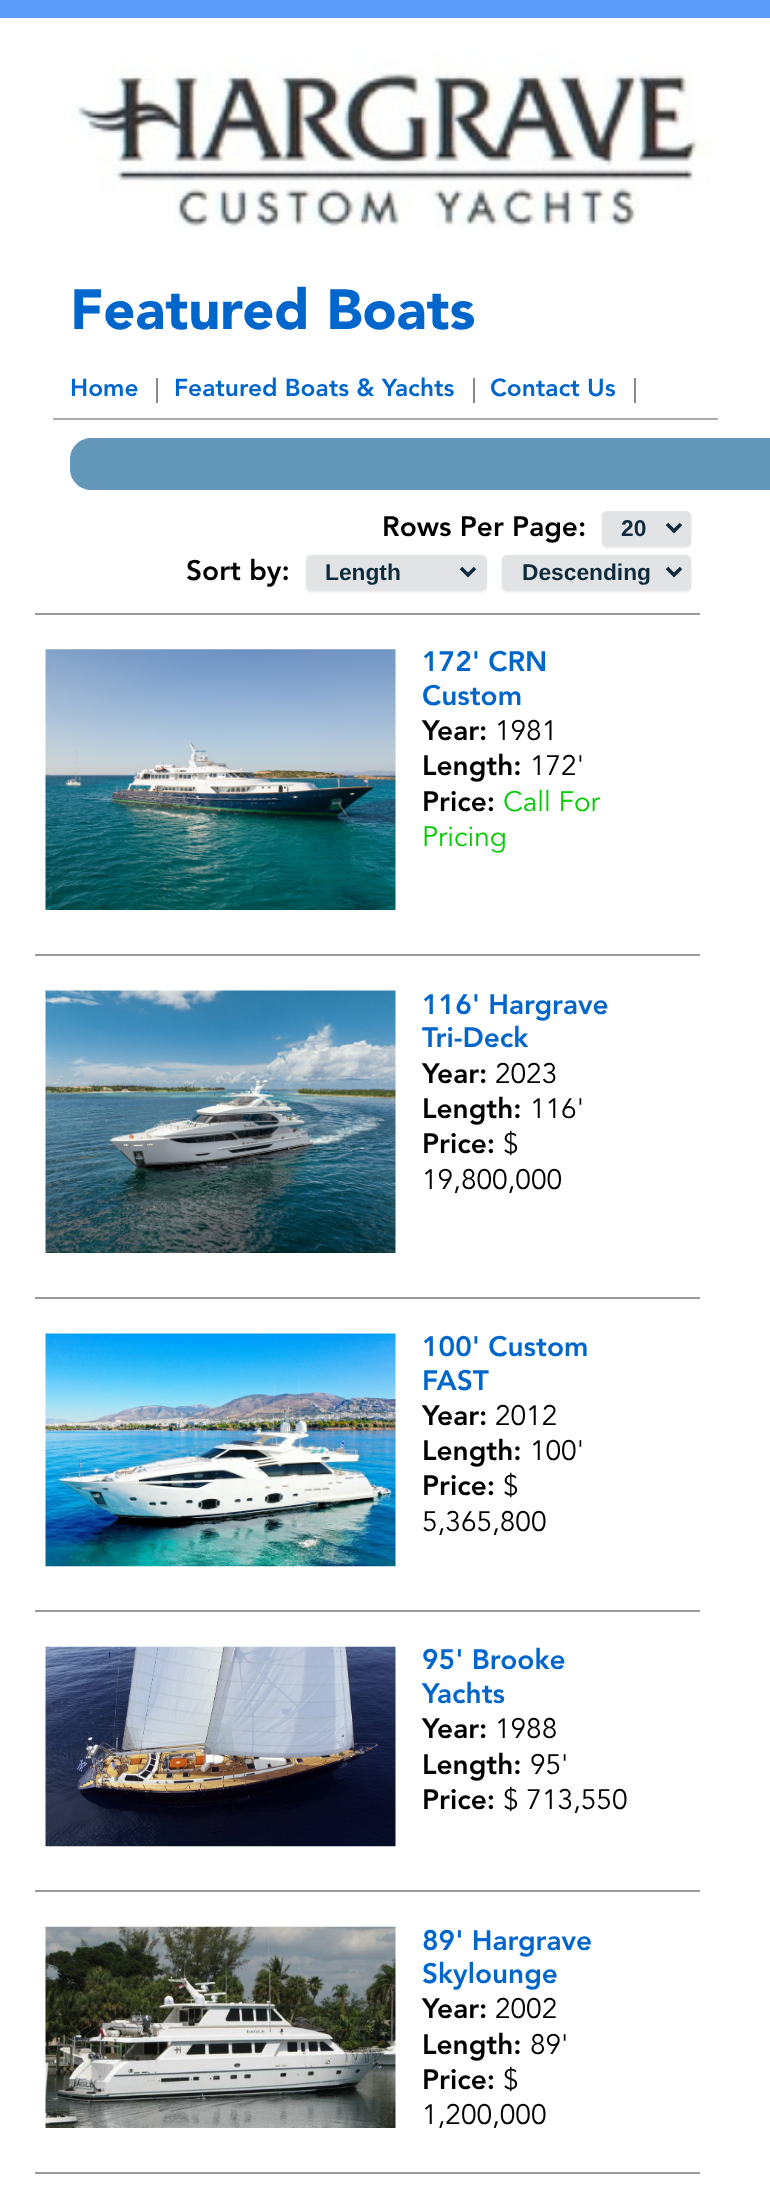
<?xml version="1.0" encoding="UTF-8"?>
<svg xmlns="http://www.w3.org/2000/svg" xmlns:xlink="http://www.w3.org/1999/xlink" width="770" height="2196">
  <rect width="100%" height="100%" fill="#ffffff" />
  <rect width="770" height="18" fill="#599bf7" />
  <rect x="53" y="418" width="665" height="2" fill="#b1aaaa" />
  <image x="70" y="53" width="642" height="175" xlink:href="image1.png" />
  <rect x="156" y="378" width="2" height="25" fill="#888888" />
  <rect x="473" y="378" width="2" height="25" fill="#888888" />
  <rect x="634" y="378" width="2" height="25" fill="#888888" />
  <path d="M 91 438 h 679 v 52 h -679 c -11.5 0 -21 -9.5 -21 -21 v -10 c 0 -11.5 9.5 -21 21 -21 z" fill="#6398b8" />
  <rect x="602" y="513" width="89" height="35" rx="5" fill="#000000" fill-opacity="0.1" filter="blur(1px)" />
  <rect x="604" y="513" width="85" height="31" rx="3" fill="#e2e3e4" stroke="#e2e3e4" stroke-width="4" />
  <path d="M 667 524 l 7 7 l 7 -7" fill="none" stroke="#0e2b3e" stroke-width="3.5" />
  <rect x="306" y="557" width="181" height="35" rx="5" fill="#000000" fill-opacity="0.1" filter="blur(1px)" />
  <rect x="308" y="557" width="177" height="31" rx="3" fill="#e2e3e4" stroke="#e2e3e4" stroke-width="4" />
  <path d="M 461 568 l 7 7 l 7 -7" fill="none" stroke="#0e2b3e" stroke-width="3.5" />
  <rect x="502" y="557" width="189" height="35" rx="5" fill="#000000" fill-opacity="0.1" filter="blur(1px)" />
  <rect x="504" y="557" width="185" height="31" rx="3" fill="#e2e3e4" stroke="#e2e3e4" stroke-width="4" />
  <path d="M 667 568 l 7 7 l 7 -7" fill="none" stroke="#0e2b3e" stroke-width="3.5" />
  <rect x="35" y="613" width="665" height="2" fill="#999999" />
  <image x="45" y="649" width="351" height="261" xlink:href="image2.png" />
  <rect x="35" y="954" width="665" height="2" fill="#999999" />
  <image x="45" y="990" width="351" height="263" xlink:href="image3.png" />
  <rect x="35" y="1297" width="665" height="2" fill="#999999" />
  <image x="45" y="1333" width="351" height="234" xlink:href="image4.png" />
  <rect x="35" y="1610" width="665" height="2" fill="#999999" />
  <image x="45" y="1646" width="351" height="201" xlink:href="image5.png" />
  <rect x="35" y="1890" width="665" height="2" fill="#999999" />
  <image x="45" y="1926" width="351" height="202" xlink:href="image6.png" />
  <rect x="35" y="2172" width="665" height="2" fill="#999999" />
  <text x="70" y="329" style="font-family: Avenir; font-size: 56px; font-weight: 900; fill: #0066cc">Featured Boats</text>
  <text x="70" y="396" style="font-family: 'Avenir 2'; font-size: 24.5px; font-weight: 900; fill: #0066cc">Home</text>
  <text x="174" y="396" style="font-family: 'Avenir 2'; font-size: 24.5px; font-weight: 900; fill: #0066cc">Featured Boats &amp; Yachts</text>
  <text x="490" y="396" style="font-family: 'Avenir 2'; font-size: 24.5px; font-weight: 900; fill: #0066cc">Contact Us</text>
  <text x="382" y="536" style="font-family: 'Avenir 2'; font-size: 28px; font-weight: 900; fill: #000000">Rows Per Page:</text>
  <text x="621" y="536" style="font-family: Liberation Sans; font-size: 22.75px; font-weight: bold; fill: #0e2b3e">20</text>
  <text x="186" y="580" style="font-family: 'Avenir 2'; font-size: 28px; font-weight: 900; fill: #000000">Sort by:</text>
  <text x="325" y="580" style="font-family: Liberation Sans; font-size: 22.75px; font-weight: bold; fill: #0e2b3e">Length</text>
  <text x="522" y="580" style="font-family: Liberation Sans; font-size: 22.75px; font-weight: bold; fill: #0e2b3e">Descending</text>
  <text x="422" y="671" style="font-family: 'Avenir 2'; font-size: 28px; font-weight: 900; fill: #0066cc">172' CRN</text>
  <text x="422" y="705" style="font-family: 'Avenir 2'; font-size: 28px; font-weight: 900; fill: #0066cc">Custom</text>
  <text x="422" y="740" style="font-family: 'Avenir 2'; font-size: 28px; font-weight: 900; fill: #000000">Year:</text>
  <text x="495" y="740" style="font-family: Avenir; font-size: 28px; fill: #000000">1981</text>
  <text x="422" y="775" style="font-family: 'Avenir 2'; font-size: 28px; font-weight: 900; fill: #000000">Length:</text>
  <text x="530" y="775" style="font-family: Avenir; font-size: 28px; fill: #000000">172'</text>
  <text x="422" y="811" style="font-family: 'Avenir 2'; font-size: 28px; font-weight: 900; fill: #000000">Price:</text>
  <text x="503" y="811" style="font-family: Avenir; font-size: 28px; fill: #00cc00">Call For</text>
  <text x="422" y="846" style="font-family: Avenir; font-size: 28px; fill: #00cc00">Pricing</text>
  <text x="422" y="1014" style="font-family: 'Avenir 2'; font-size: 28px; font-weight: 900; fill: #0066cc">116' Hargrave</text>
  <text x="422" y="1047" style="font-family: 'Avenir 2'; font-size: 28px; font-weight: 900; fill: #0066cc">Tri-Deck</text>
  <text x="422" y="1083" style="font-family: 'Avenir 2'; font-size: 28px; font-weight: 900; fill: #000000">Year:</text>
  <text x="495" y="1083" style="font-family: Avenir; font-size: 28px; fill: #000000">2023</text>
  <text x="422" y="1118" style="font-family: 'Avenir 2'; font-size: 28px; font-weight: 900; fill: #000000">Length:</text>
  <text x="530" y="1118" style="font-family: Avenir; font-size: 28px; fill: #000000">116'</text>
  <text x="422" y="1153" style="font-family: 'Avenir 2'; font-size: 28px; font-weight: 900; fill: #000000">Price:</text>
  <text x="503" y="1153" style="font-family: Avenir; font-size: 28px; fill: #000000">$</text>
  <text x="422" y="1189" style="font-family: Avenir; font-size: 28px; fill: #000000">19,800,000</text>
  <text x="422" y="1356" style="font-family: 'Avenir 2'; font-size: 28px; font-weight: 900; fill: #0066cc">100' Custom</text>
  <text x="422" y="1390" style="font-family: 'Avenir 2'; font-size: 28px; font-weight: 900; fill: #0066cc">FAST</text>
  <text x="422" y="1425" style="font-family: 'Avenir 2'; font-size: 28px; font-weight: 900; fill: #000000">Year:</text>
  <text x="495" y="1425" style="font-family: Avenir; font-size: 28px; fill: #000000">2012</text>
  <text x="422" y="1460" style="font-family: 'Avenir 2'; font-size: 28px; font-weight: 900; fill: #000000">Length:</text>
  <text x="530" y="1460" style="font-family: Avenir; font-size: 28px; fill: #000000">100'</text>
  <text x="422" y="1495" style="font-family: 'Avenir 2'; font-size: 28px; font-weight: 900; fill: #000000">Price:</text>
  <text x="503" y="1495" style="font-family: Avenir; font-size: 28px; fill: #000000">$</text>
  <text x="422" y="1531" style="font-family: Avenir; font-size: 28px; fill: #000000">5,365,800</text>
  <text x="422" y="1669" style="font-family: 'Avenir 2'; font-size: 28px; font-weight: 900; fill: #0066cc">95' Brooke</text>
  <text x="422" y="1703" style="font-family: 'Avenir 2'; font-size: 28px; font-weight: 900; fill: #0066cc">Yachts</text>
  <text x="422" y="1738" style="font-family: 'Avenir 2'; font-size: 28px; font-weight: 900; fill: #000000">Year:</text>
  <text x="495" y="1738" style="font-family: Avenir; font-size: 28px; fill: #000000">1988</text>
  <text x="422" y="1774" style="font-family: 'Avenir 2'; font-size: 28px; font-weight: 900; fill: #000000">Length:</text>
  <text x="530" y="1774" style="font-family: Avenir; font-size: 28px; fill: #000000">95'</text>
  <text x="422" y="1809" style="font-family: 'Avenir 2'; font-size: 28px; font-weight: 900; fill: #000000">Price:</text>
  <text x="503" y="1809" style="font-family: Avenir; font-size: 28px; fill: #000000">$ 713,550</text>
  <text x="422" y="1950" style="font-family: 'Avenir 2'; font-size: 28px; font-weight: 900; fill: #0066cc">89' Hargrave</text>
  <text x="422" y="1983" style="font-family: 'Avenir 2'; font-size: 28px; font-weight: 900; fill: #0066cc">Skylounge</text>
  <text x="422" y="2018" style="font-family: 'Avenir 2'; font-size: 28px; font-weight: 900; fill: #000000">Year:</text>
  <text x="495" y="2018" style="font-family: Avenir; font-size: 28px; fill: #000000">2002</text>
  <text x="422" y="2054" style="font-family: 'Avenir 2'; font-size: 28px; font-weight: 900; fill: #000000">Length:</text>
  <text x="530" y="2054" style="font-family: Avenir; font-size: 28px; fill: #000000">89'</text>
  <text x="422" y="2089" style="font-family: 'Avenir 2'; font-size: 28px; font-weight: 900; fill: #000000">Price:</text>
  <text x="503" y="2089" style="font-family: Avenir; font-size: 28px; fill: #000000">$</text>
  <text x="422" y="2124" style="font-family: Avenir; font-size: 28px; fill: #000000">1,200,000</text>
</svg>
